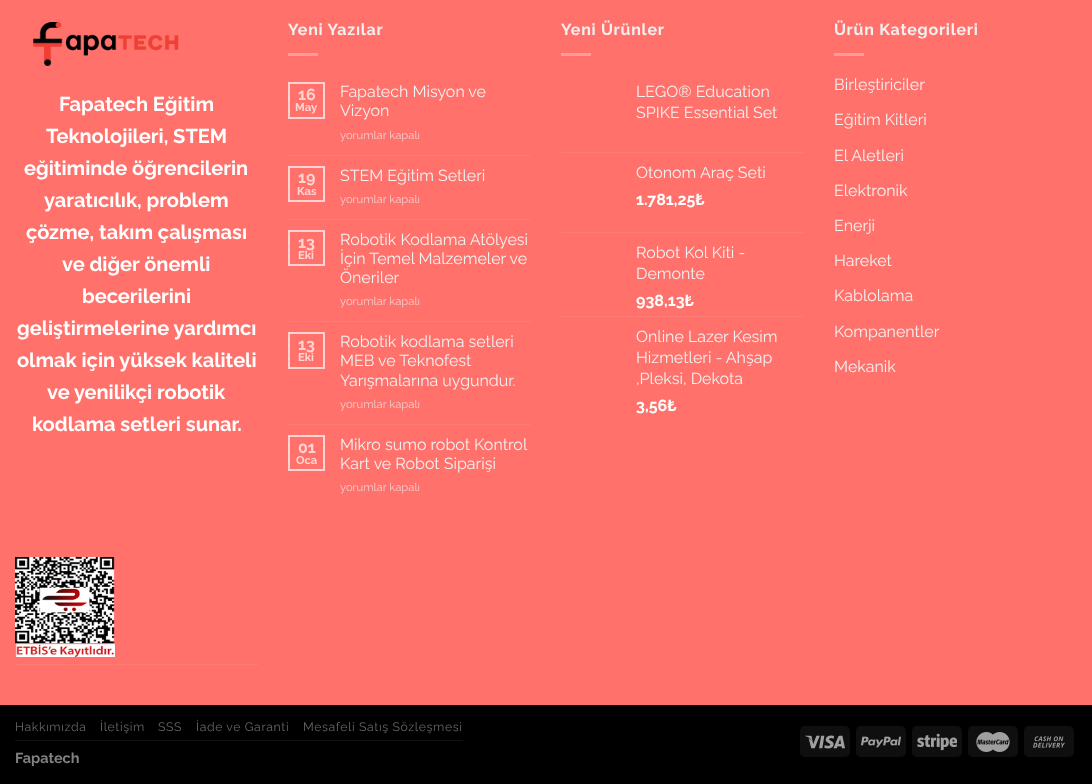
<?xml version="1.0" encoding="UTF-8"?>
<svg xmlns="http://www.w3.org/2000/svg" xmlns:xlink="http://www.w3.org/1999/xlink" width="1092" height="784">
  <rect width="100%" height="100%" fill="#ff716a" />
  <image x="33" y="21" width="146" height="45" xlink:href="image1.png" />
  <rect x="288" y="53" width="30" height="3" fill="#ff9c97" />
  <rect x="289" y="83" width="35" height="35" fill="none" stroke="#ffd4d2" stroke-width="2" />
  <rect x="288" y="155" width="243" height="1" fill="#ff7c76" />
  <rect x="289" y="167" width="35" height="34" fill="none" stroke="#ffd4d2" stroke-width="2" />
  <rect x="288" y="219" width="243" height="1" fill="#ff7c76" />
  <rect x="289" y="231" width="35" height="34" fill="none" stroke="#ffd4d2" stroke-width="2" />
  <rect x="288" y="321" width="243" height="1" fill="#ff7c76" />
  <rect x="289" y="333" width="35" height="35" fill="none" stroke="#ffd4d2" stroke-width="2" />
  <rect x="288" y="424" width="243" height="1" fill="#ff7c76" />
  <rect x="289" y="436" width="35" height="34" fill="none" stroke="#ffd4d2" stroke-width="2" />
  <rect x="561" y="53" width="30" height="3" fill="#ff9c97" />
  <rect x="561" y="152" width="243" height="1" fill="#ff7c76" />
  <rect x="561" y="232" width="243" height="1" fill="#ff7c76" />
  <rect x="561" y="316" width="243" height="1" fill="#ff7c76" />
  <rect x="834" y="53" width="30" height="3" fill="#ff9c97" />
  <rect x="15" y="664" width="243" height="1" fill="#ff7c76" />
  <image x="15" y="557" width="100" height="100" xlink:href="image2.png" />
  <rect y="705" width="1092" height="79" fill="#000000" />
  <rect x="15" y="740" width="448" height="1" fill="#101010" />
  <rect x="800" y="726" width="50" height="31" rx="5" fill="#0f0f0f" />
  <image x="805" y="735" width="40" height="14" xlink:href="image3.png" />
  <rect x="856" y="726" width="50" height="31" rx="5" fill="#0f0f0f" />
  <image x="861" y="736" width="40" height="12" xlink:href="image4.png" />
  <rect x="912" y="726" width="50" height="31" rx="5" fill="#0f0f0f" />
  <image x="917" y="733" width="40" height="18" xlink:href="image5.png" />
  <rect x="968" y="726" width="50" height="31" rx="5" fill="#0f0f0f" />
  <image x="976" y="732" width="34" height="20" xlink:href="image6.png" />
  <rect x="1024" y="726" width="50" height="31" rx="5" fill="#0f0f0f" />
  <image x="1033" y="736" width="32" height="12" xlink:href="image7.png" />
  <text x="59" y="111" style="font-family: Raleway; font-size: 20px; font-weight: bold; fill: #ffffff">Fapatech Eğitim</text>
  <text x="46" y="143" style="font-family: Raleway; font-size: 20px; font-weight: bold; fill: #ffffff">Teknolojileri, STEM</text>
  <text x="24" y="175" style="font-family: Raleway; font-size: 20px; font-weight: bold; fill: #ffffff">eğitiminde öğrencilerin</text>
  <text x="44" y="207" style="font-family: Raleway; font-size: 20px; font-weight: bold; fill: #ffffff">yaratıcılık, problem</text>
  <text x="26" y="239" style="font-family: Raleway; font-size: 20px; font-weight: bold; fill: #ffffff">çözme, takım çalışması</text>
  <text x="62" y="271" style="font-family: Raleway; font-size: 20px; font-weight: bold; fill: #ffffff">ve diğer önemli</text>
  <text x="82" y="303" style="font-family: Raleway; font-size: 20px; font-weight: bold; fill: #ffffff">becerilerini</text>
  <text x="17" y="335" style="font-family: Raleway; font-size: 20px; font-weight: bold; fill: #ffffff">geliştirmelerine yardımcı</text>
  <text x="17" y="367" style="font-family: Raleway; font-size: 20px; font-weight: bold; fill: #ffffff">olmak için yüksek kaliteli</text>
  <text x="47" y="399" style="font-family: Raleway; font-size: 20px; font-weight: bold; fill: #ffffff">ve yenilikçi robotik</text>
  <text x="32" y="431" style="font-family: Raleway; font-size: 20px; font-weight: bold; fill: #ffffff">kodlama setleri sunar.</text>
  <text x="288" y="35" style="font-family: Raleway; font-size: 16px; font-weight: bold; letter-spacing: 0.75px; fill: #f1f1f1">Yeni Yazılar</text>
  <text x="298" y="100" style="font-family: Raleway; font-size: 16px; font-weight: bold; fill: #ffd4d2">16</text>
  <text x="295" y="111" style="font-family: Raleway; font-size: 11.25px; font-weight: bold; fill: #ffd4d2">May</text>
  <text x="340" y="97" style="font-family: Raleway; font-size: 16px; fill: #f1f1f1">Fapatech Misyon ve</text>
  <text x="340" y="116" style="font-family: Raleway; font-size: 16px; fill: #f1f1f1">Vizyon</text>
  <text x="340" y="139" style="font-family: Raleway; font-size: 11.25px; fill: #f5cbc9">yorumlar kapalı</text>
  <text x="298" y="183" style="font-family: Raleway; font-size: 16px; font-weight: bold; fill: #ffd4d2">19</text>
  <text x="297" y="195" style="font-family: Raleway; font-size: 11.25px; font-weight: bold; fill: #ffd4d2">Kas</text>
  <text x="340" y="181" style="font-family: Raleway; font-size: 16px; fill: #f1f1f1">STEM Eğitim Setleri</text>
  <text x="340" y="203" style="font-family: Raleway; font-size: 11.25px; fill: #f5cbc9">yorumlar kapalı</text>
  <text x="298" y="248" style="font-family: Raleway; font-size: 16px; font-weight: bold; fill: #ffd4d2">13</text>
  <text x="298" y="259" style="font-family: Raleway; font-size: 11.25px; font-weight: bold; fill: #ffd4d2">Eki</text>
  <text x="340" y="245" style="font-family: Raleway; font-size: 16px; fill: #f1f1f1">Robotik Kodlama Atölyesi</text>
  <text x="340" y="264" style="font-family: Raleway; font-size: 16px; fill: #f1f1f1">İçin Temel Malzemeler ve</text>
  <text x="340" y="283" style="font-family: Raleway; font-size: 16px; fill: #f1f1f1">Öneriler</text>
  <text x="340" y="305" style="font-family: Raleway; font-size: 11.25px; fill: #f5cbc9">yorumlar kapalı</text>
  <text x="298" y="350" style="font-family: Raleway; font-size: 16px; font-weight: bold; fill: #ffd4d2">13</text>
  <text x="298" y="361" style="font-family: Raleway; font-size: 11.25px; font-weight: bold; fill: #ffd4d2">Eki</text>
  <text x="340" y="347" style="font-family: Raleway; font-size: 16px; fill: #f1f1f1">Robotik kodlama setleri</text>
  <text x="340" y="366" style="font-family: Raleway; font-size: 16px; fill: #f1f1f1">MEB ve Teknofest</text>
  <text x="340" y="386" style="font-family: Raleway; font-size: 16px; fill: #f1f1f1">Yarışmalarına uygundur.</text>
  <text x="340" y="408" style="font-family: Raleway; font-size: 11.25px; fill: #f5cbc9">yorumlar kapalı</text>
  <text x="298" y="453" style="font-family: Raleway; font-size: 16px; font-weight: bold; fill: #ffd4d2">01</text>
  <text x="296" y="464" style="font-family: Raleway; font-size: 11.25px; font-weight: bold; fill: #ffd4d2">Oca</text>
  <text x="340" y="450" style="font-family: Raleway; font-size: 16px; fill: #f1f1f1">Mikro sumo robot Kontrol</text>
  <text x="340" y="469" style="font-family: Raleway; font-size: 16px; fill: #f1f1f1">Kart ve Robot Siparişi</text>
  <text x="340" y="491" style="font-family: Raleway; font-size: 11.25px; fill: #f5cbc9">yorumlar kapalı</text>
  <text x="561" y="35" style="font-family: Raleway; font-size: 16px; font-weight: bold; letter-spacing: 0.75px; fill: #f1f1f1">Yeni Ürünler</text>
  <text x="636" y="97" style="font-family: Raleway; font-size: 16px; fill: #f1f1f1">LEGO® Education</text>
  <text x="636" y="118" style="font-family: Raleway; font-size: 16px; fill: #f1f1f1">SPIKE Essential Set</text>
  <text x="636" y="178" style="font-family: Raleway; font-size: 16px; fill: #f1f1f1">Otonom Araç Seti</text>
  <text x="636" y="205" style="font-family: Raleway; font-size: 16px; font-weight: bold; fill: #ffffff">1.781,25₺</text>
  <text x="636" y="258" style="font-family: Raleway; font-size: 16px; fill: #f1f1f1">Robot Kol Kiti -</text>
  <text x="636" y="279" style="font-family: Raleway; font-size: 16px; fill: #f1f1f1">Demonte</text>
  <text x="636" y="306" style="font-family: Raleway; font-size: 16px; font-weight: bold; fill: #ffffff">938,13₺</text>
  <text x="636" y="342" style="font-family: Raleway; font-size: 16px; fill: #f1f1f1">Online Lazer Kesim</text>
  <text x="636" y="363" style="font-family: Raleway; font-size: 16px; fill: #f1f1f1">Hizmetleri - Ahşap</text>
  <text x="636" y="384" style="font-family: Raleway; font-size: 16px; fill: #f1f1f1">,Pleksi, Dekota</text>
  <text x="636" y="411" style="font-family: Raleway; font-size: 16px; font-weight: bold; fill: #ffffff">3,56₺</text>
  <text x="834" y="35" style="font-family: Raleway; font-size: 16px; font-weight: bold; letter-spacing: 0.75px; fill: #f1f1f1">Ürün Kategorileri</text>
  <text x="834" y="90" style="font-family: Raleway; font-size: 16px; fill: #f1f1f1">Birleştiriciler</text>
  <text x="834" y="125" style="font-family: Raleway; font-size: 16px; fill: #f1f1f1">Eğitim Kitleri</text>
  <text x="834" y="161" style="font-family: Raleway; font-size: 16px; fill: #f1f1f1">El Aletleri</text>
  <text x="834" y="196" style="font-family: Raleway; font-size: 16px; fill: #f1f1f1">Elektronik</text>
  <text x="834" y="231" style="font-family: Raleway; font-size: 16px; fill: #f1f1f1">Enerji</text>
  <text x="834" y="266" style="font-family: Raleway; font-size: 16px; fill: #f1f1f1">Hareket</text>
  <text x="834" y="301" style="font-family: Raleway; font-size: 16px; fill: #f1f1f1">Kablolama</text>
  <text x="834" y="337" style="font-family: Raleway; font-size: 16px; fill: #f1f1f1">Kompanentler</text>
  <text x="834" y="372" style="font-family: Raleway; font-size: 16px; fill: #f1f1f1">Mekanik</text>
  <text x="15" y="731" style="font-family: Raleway; font-size: 12.25px; letter-spacing: 0.6px; fill: #666666">Hakkımızda</text>
  <text x="100" y="731" style="font-family: Raleway; font-size: 12.25px; letter-spacing: 0.6px; fill: #666666">İletişim</text>
  <text x="158" y="731" style="font-family: Raleway; font-size: 12.25px; letter-spacing: 0.6px; fill: #666666">SSS</text>
  <text x="196" y="731" style="font-family: Raleway; font-size: 12.25px; letter-spacing: 0.6px; fill: #666666">İade ve Garanti</text>
  <text x="303" y="731" style="font-family: Raleway; font-size: 12.25px; letter-spacing: 0.6px; fill: #666666">Mesafeli Satış Sözleşmesi</text>
  <text x="15" y="763" style="font-family: Raleway; font-size: 14.5px; font-weight: bold; fill: #808080">Fapatech</text>
</svg>
